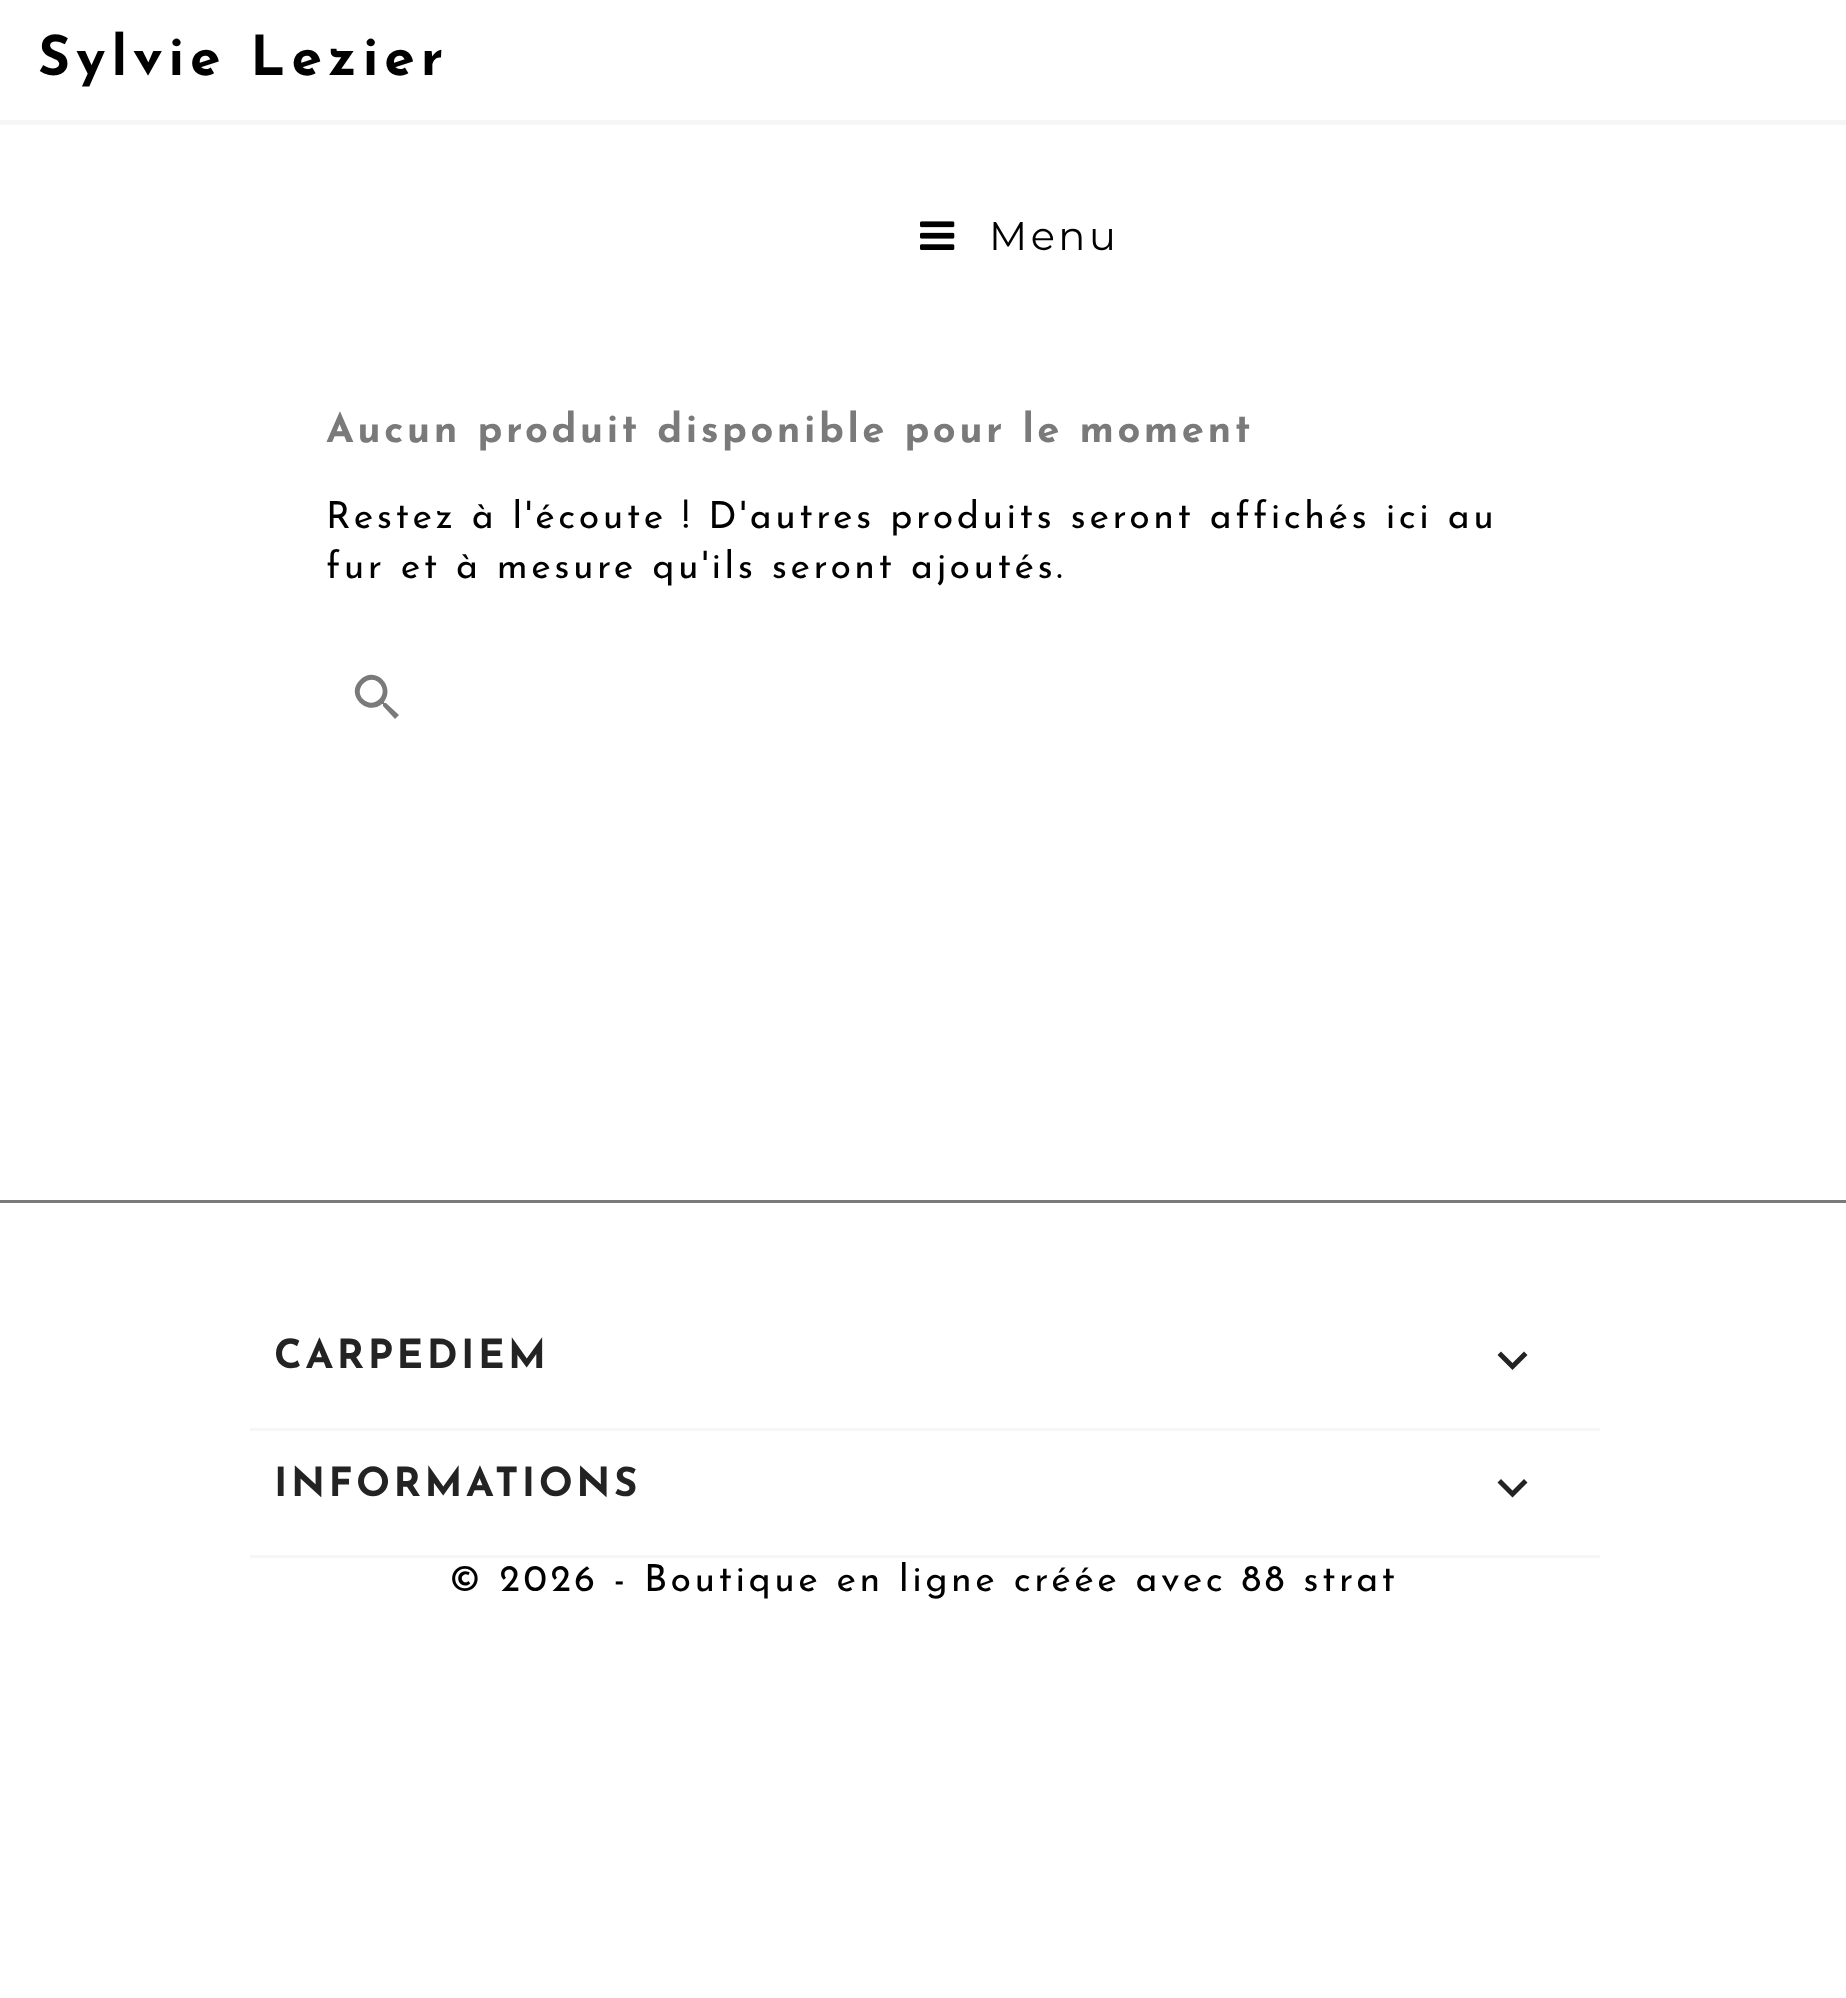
<?xml version="1.0" encoding="UTF-8"?>
<svg xmlns="http://www.w3.org/2000/svg" xmlns:xlink="http://www.w3.org/1999/xlink" width="1846" height="1998">
  <rect width="100%" height="100%" fill="#ffffff" />
  <rect y="120" width="1846" height="5" fill="#f6f6f6" />
  <image x="920" y="221" width="35" height="29" xlink:href="image1.png" />
  <path d="M 363 699 c 11 11 27 -5 16 -16 c -10 -10 -26 6 -16 16 z m 23 4 l 13 12 l -4 4 l -12 -13 v -2 h -1 c -16 13 -37 -10 -22 -24 c 15 -15 36 6 24 22 v 1 z" fill="#7a7a7a" />
  <rect y="1200" width="1846" height="3" fill="#7a7a7a" />
  <rect x="250" y="1428" width="1350" height="3" fill="#f6f6f6" />
  <path d="M 1501 1351.5 l 11.5 11.5 l 11.5 -11.5 l 3.5 3.5 l -15 15 l -15 -15 z" fill="#232323" />
  <rect x="250" y="1555" width="1350" height="3" fill="#f6f6f6" />
  <path d="M 1501 1479 l 11.5 11.5 l 11.5 -11.5 l 3.5 3.5 l -15 15 l -15 -15 z" fill="#232323" />
  <text x="38" y="75" style="font-family: Josefin Sans; font-size: 55px; font-weight: bold; letter-spacing: 6px; fill: #000000">Sylvie Lezier</text>
  <text x="989" y="250" style="font-family: Montserrat; font-size: 40px; font-weight: 100; letter-spacing: 3.5px; fill: #000000">Menu</text>
  <text x="326" y="442" style="font-family: Josefin Sans; font-size: 40px; font-weight: bold; letter-spacing: 3.5px; fill: #7a7a7a">Aucun produit disponible pour le moment</text>
  <text x="326" y="528" style="font-family: Josefin Sans; font-size: 37.5px; letter-spacing: 3.5px; fill: #000000">Restez à l'écoute ! D'autres produits seront affichés ici au</text>
  <text x="326" y="578" style="font-family: Josefin Sans; font-size: 37.5px; letter-spacing: 3.5px; fill: #000000">fur et à mesure qu'ils seront ajoutés.</text>
  <text x="274" y="1368" style="font-family: Josefin Sans; font-size: 40px; font-weight: bold; letter-spacing: 3.5px; fill: #232323">CARPEDIEM</text>
  <text x="274" y="1496" style="font-family: Josefin Sans; font-size: 40px; font-weight: bold; letter-spacing: 3.5px; fill: #232323">INFORMATIONS</text>
  <text x="449" y="1591" style="font-family: Josefin Sans; font-size: 37.5px; letter-spacing: 3.5px; fill: #000000">© 2026 - Boutique en ligne créée avec 88 strat</text>
</svg>
